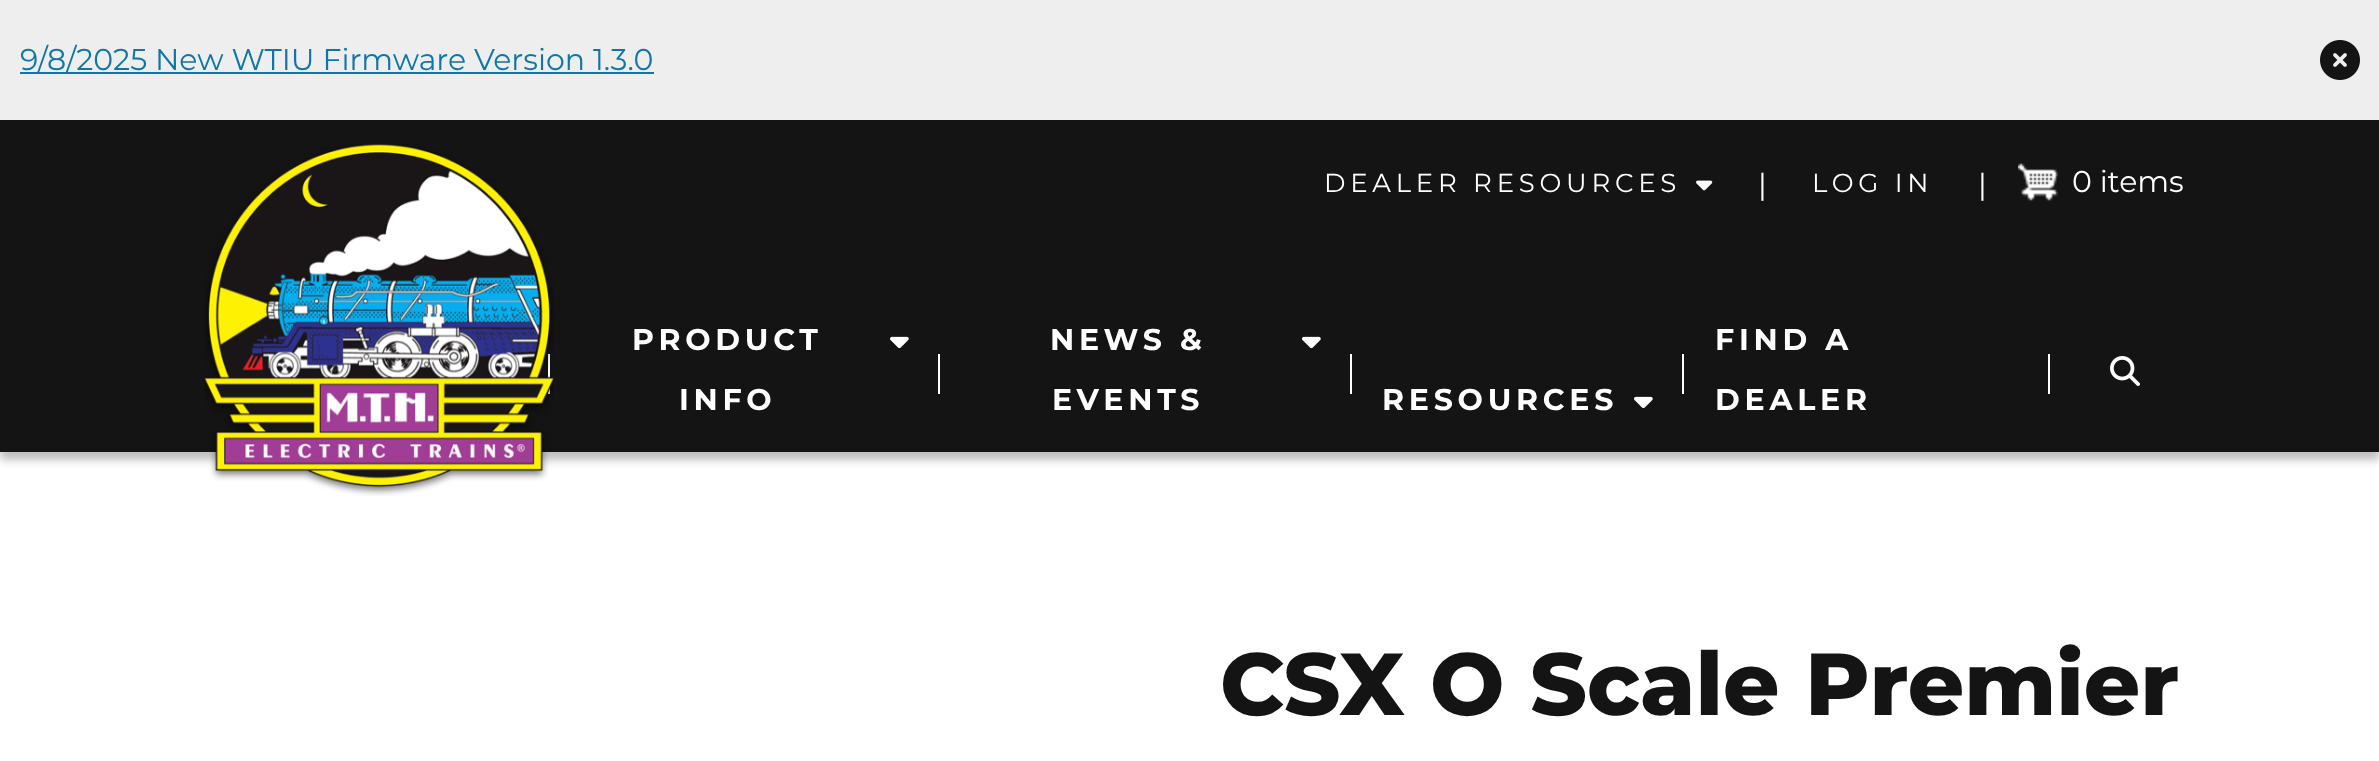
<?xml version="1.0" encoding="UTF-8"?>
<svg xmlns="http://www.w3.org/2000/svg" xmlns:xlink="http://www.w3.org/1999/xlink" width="2379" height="761">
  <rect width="100%" height="100%" fill="#ffffff" />
  <rect width="2379" height="120" fill="#eeeeee" />
  <rect x="20" y="72" width="634" height="2" fill="#1076a8" />
  <image x="2320" y="40" width="40" height="40" xlink:href="image1.png" />
  <rect y="128" width="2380" height="332" fill="#000000" fill-opacity="0.25" filter="blur(4px)" />
  <rect y="120" width="2379" height="332" fill="#141414" />
  <rect x="548" y="354" width="2" height="40" fill="#ffffff" />
  <image x="204" y="144" width="350" height="352" xlink:href="image2.png" />
  <image x="1696" y="180" width="17" height="11" xlink:href="image3.png" />
  <image x="2018" y="163" width="40" height="38" xlink:href="image4.png" />
  <image x="890" y="336" width="19" height="13" xlink:href="image5.png" />
  <rect x="938" y="354" width="2" height="40" fill="#ffffff" />
  <image x="1302" y="336" width="19" height="13" xlink:href="image5.png" />
  <rect x="1682" y="354" width="2" height="40" fill="#ffffff" />
  <rect x="2048" y="354" width="2" height="40" fill="#ffffff" />
  <image x="2110" y="356" width="30" height="30" xlink:href="image6.png" />
  <rect x="1350" y="354" width="2" height="40" fill="#ffffff" />
  <image x="1634" y="396" width="19" height="13" xlink:href="image5.png" />
  <text x="20" y="70" style="font-family: Montserrat; font-size: 30px; fill: #1076a8">9/8/2025 New WTIU Firmware Version 1.3.0</text>
  <text x="1324" y="192" style="font-family: Montserrat; font-size: 26px; letter-spacing: 4.75px; fill: #ffffff">DEALER RESOURCES</text>
  <text x="1758" y="195" style="font-family: Montserrat; font-size: 30px; fill: #ffffff">|</text>
  <text x="1812" y="192" style="font-family: Montserrat; font-size: 26px; letter-spacing: 4.75px; fill: #ffffff">LOG IN</text>
  <text x="1978" y="195" style="font-family: Montserrat; font-size: 30px; fill: #ffffff">|</text>
  <text x="2072" y="192" style="font-family: Montserrat; font-size: 30px; fill: #ffffff">0 items</text>
  <text x="632" y="350" style="font-family: Montserrat; font-size: 30px; font-weight: bold; letter-spacing: 4.75px; fill: #ffffff">PRODUCT</text>
  <text x="679" y="410" style="font-family: Montserrat; font-size: 30px; font-weight: bold; letter-spacing: 4.75px; fill: #ffffff">INFO</text>
  <text x="1050" y="350" style="font-family: Montserrat; font-size: 30px; font-weight: bold; letter-spacing: 4.75px; fill: #ffffff">NEWS &amp;</text>
  <text x="1052" y="410" style="font-family: Montserrat; font-size: 30px; font-weight: bold; letter-spacing: 4.75px; fill: #ffffff">EVENTS</text>
  <text x="1715" y="350" style="font-family: Montserrat; font-size: 30px; font-weight: bold; letter-spacing: 4.75px; fill: #ffffff">FIND A</text>
  <text x="1715" y="410" style="font-family: Montserrat; font-size: 30px; font-weight: bold; letter-spacing: 4.75px; fill: #ffffff">DEALER</text>
  <text x="1382" y="410" style="font-family: Montserrat; font-size: 30px; font-weight: bold; letter-spacing: 4.75px; fill: #ffffff">RESOURCES</text>
  <text x="1220" y="715" style="font-family: Montserrat; font-size: 88px; font-weight: 800; fill: #141414">CSX O Scale Premier</text>
</svg>
